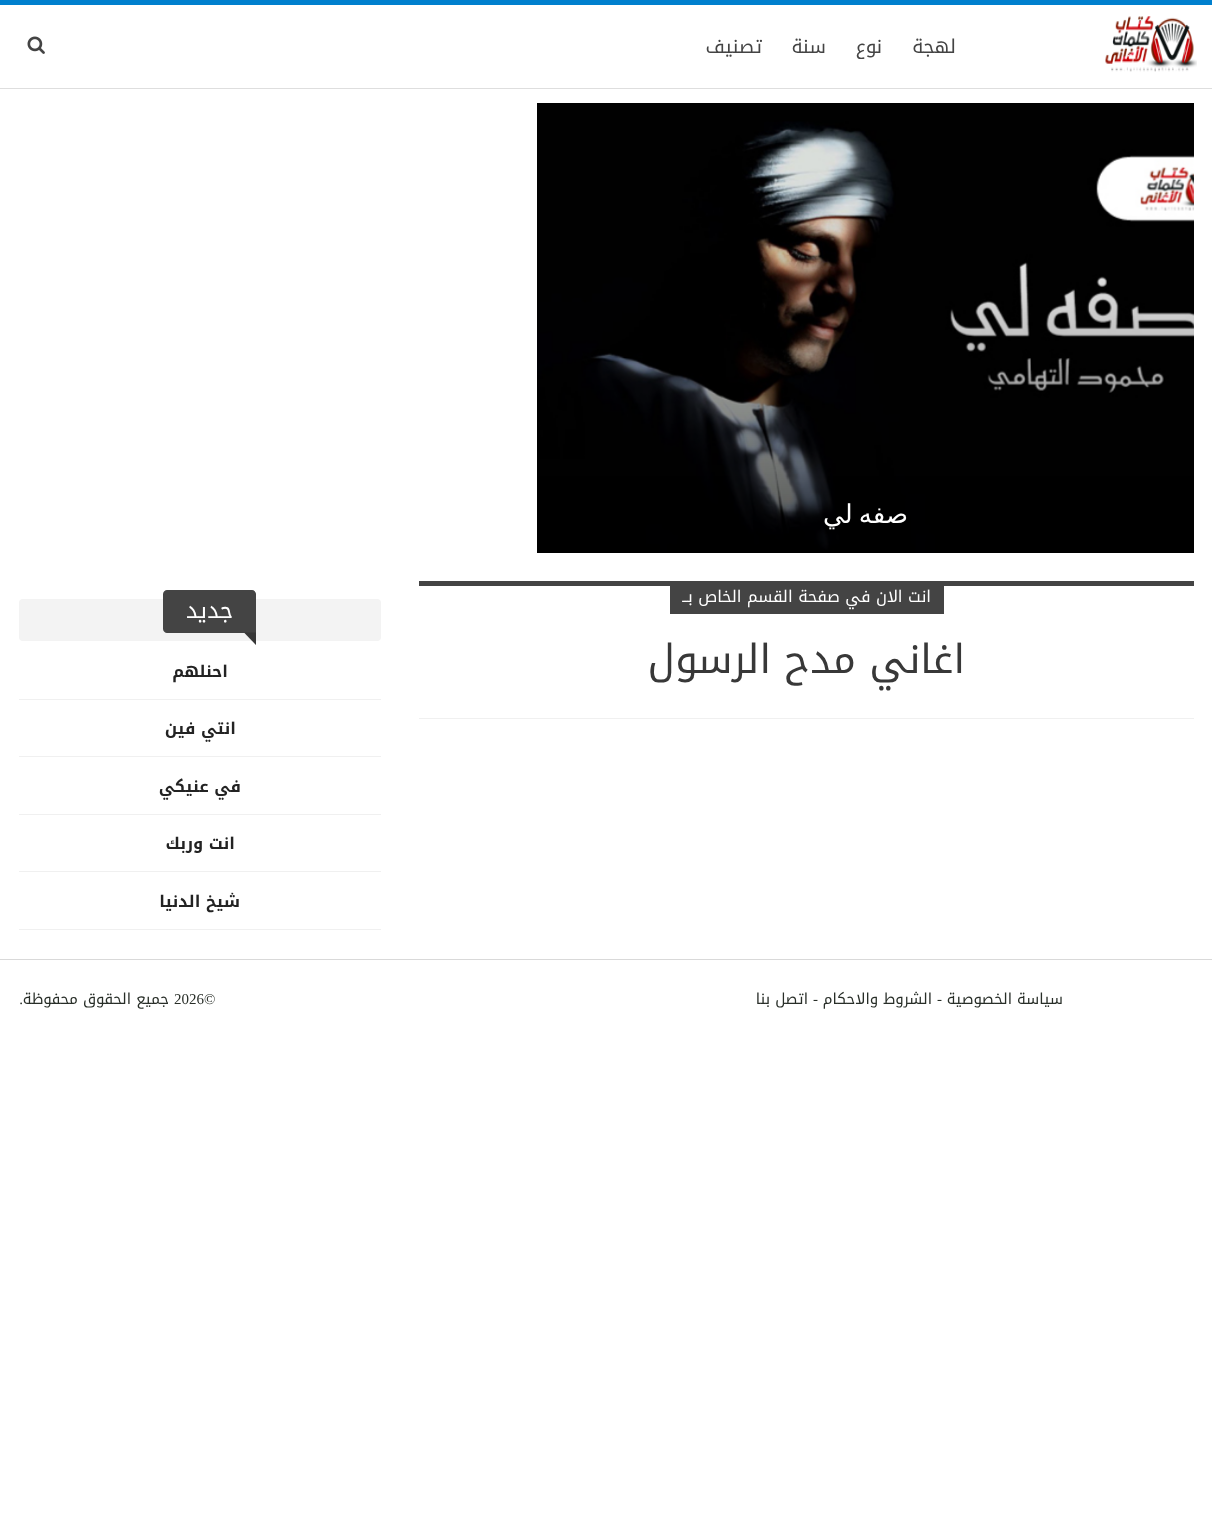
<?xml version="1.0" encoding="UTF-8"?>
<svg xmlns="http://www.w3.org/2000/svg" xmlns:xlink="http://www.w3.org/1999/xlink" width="1212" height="1514">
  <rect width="100%" height="100%" fill="#ffffff" />
  <rect width="1212" height="5" fill="#0080ce" />
  <rect y="88" width="1212" height="1" fill="#dedede" />
  <image x="1105" y="16" width="92" height="56" xlink:href="image1.png" />
  <image x="27" y="36" width="18" height="18" xlink:href="image2.png" />
  <image x="537" y="103" width="657" height="450" xlink:href="image3.png" />
  <rect x="419" y="718" width="775" height="1" fill="#f0f0f0" />
  <rect x="419" y="581" width="775" height="5" fill="#444444" />
  <rect x="670" y="586" width="274" height="28" fill="#444444" />
  <rect x="19" y="599" width="362" height="42" rx="4" fill="#f3f3f3" />
  <path d="M 167 590 h 85 c 2 0 4 2 4 4 v 39 h -89 c -2 0 -4 -2 -4 -4 v -35 c 0 -2 2 -4 4 -4 z" fill="#444444" />
  <path d="M 244 632.5 h 12 v 12.5 z" fill="#444444" />
  <path d="M 244 632.5 h 12 v 12.5 z" fill="#000000" fill-opacity="0.18" />
  <rect x="19" y="699" width="362" height="1" fill="#f0f0f0" />
  <rect x="19" y="756" width="362" height="1" fill="#f0f0f0" />
  <rect x="19" y="814" width="362" height="1" fill="#f0f0f0" />
  <rect x="19" y="871" width="362" height="1" fill="#f0f0f0" />
  <rect x="19" y="929" width="362" height="1" fill="#f0f0f0" />
  <rect y="959" width="1212" height="1" fill="#d9d9d9" />
  <text x="956" y="53" style="font-family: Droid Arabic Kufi; font-size: 19px; direction: rtl; fill: #444444">لهجة</text>
  <text x="882" y="53" style="font-family: Droid Arabic Kufi; font-size: 19px; direction: rtl; fill: #444444">نوع</text>
  <text x="826" y="53" style="font-family: Droid Arabic Kufi; font-size: 19px; direction: rtl; fill: #444444">سنة</text>
  <text x="762" y="53" style="font-family: Droid Arabic Kufi; font-size: 19px; direction: rtl; fill: #444444">تصنيف</text>
  <text x="908" y="523" word-spacing="-2" style="font-family: DejaVu Sans; font-size: 26px; direction: rtl; fill: #ffffff">صفه لي</text>
  <text x="931" y="602" style="font-family: Droid Arabic Kufi; font-size: 16.25px; direction: rtl; fill: #ffffff">انت الان في صفحة القسم الخاص بــ</text>
  <text x="965" y="673" style="font-family: Droid Arabic Kufi; font-size: 40px; direction: rtl; fill: #383838">اغاني مدح الرسول</text>
  <text x="233" y="618" style="font-family: Droid Arabic Kufi; font-size: 22.5px; direction: rtl; fill: #ffffff">جديد</text>
  <text x="228" y="677" style="font-family: Droid Arabic Kufi; font-size: 16.25px; font-weight: bold; direction: rtl; fill: #232323">احنلهم</text>
  <text x="236" y="734" style="font-family: Droid Arabic Kufi; font-size: 16.25px; font-weight: bold; direction: rtl; fill: #232323">انتي فين</text>
  <text x="241" y="792" style="font-family: Droid Arabic Kufi; font-size: 16.25px; font-weight: bold; direction: rtl; fill: #232323">في عنيكي</text>
  <text x="235" y="849" style="font-family: Droid Arabic Kufi; font-size: 16.25px; font-weight: bold; direction: rtl; fill: #232323">انت وربك</text>
  <text x="240" y="907" style="font-family: Droid Arabic Kufi; font-size: 16.25px; font-weight: bold; direction: rtl; fill: #232323">شيخ الدنيا</text>
  <text x="1063" y="1004" style="font-family: Droid Arabic Kufi; font-size: 15px; direction: rtl; fill: #282e28">سياسة الخصوصية</text>
  <text x="937" y="1004" style="font-family: Liberation Serif; font-size: 15px; fill: #282e28">-</text>
  <text x="932" y="1004" style="font-family: Droid Arabic Kufi; font-size: 15px; direction: rtl; fill: #282e28">الشروط والاحكام</text>
  <text x="813" y="1004" style="font-family: Liberation Serif; font-size: 15px; fill: #282e28">-</text>
  <text x="808" y="1004" style="font-family: Droid Arabic Kufi; font-size: 15px; direction: rtl; fill: #282e28">اتصل بنا</text>
  <text x="174" y="1004" style="font-family: Liberation Serif; font-size: 15px; fill: #282e28">2026©</text>
  <text x="169" y="1004" style="font-family: Droid Arabic Kufi; font-size: 15px; direction: rtl; fill: #282e28">جميع الحقوق محفوظة</text>
  <text x="23" y="1004" style="font-family: Liberation Serif; font-size: 15px; direction: rtl; fill: #282e28">.</text>
</svg>
